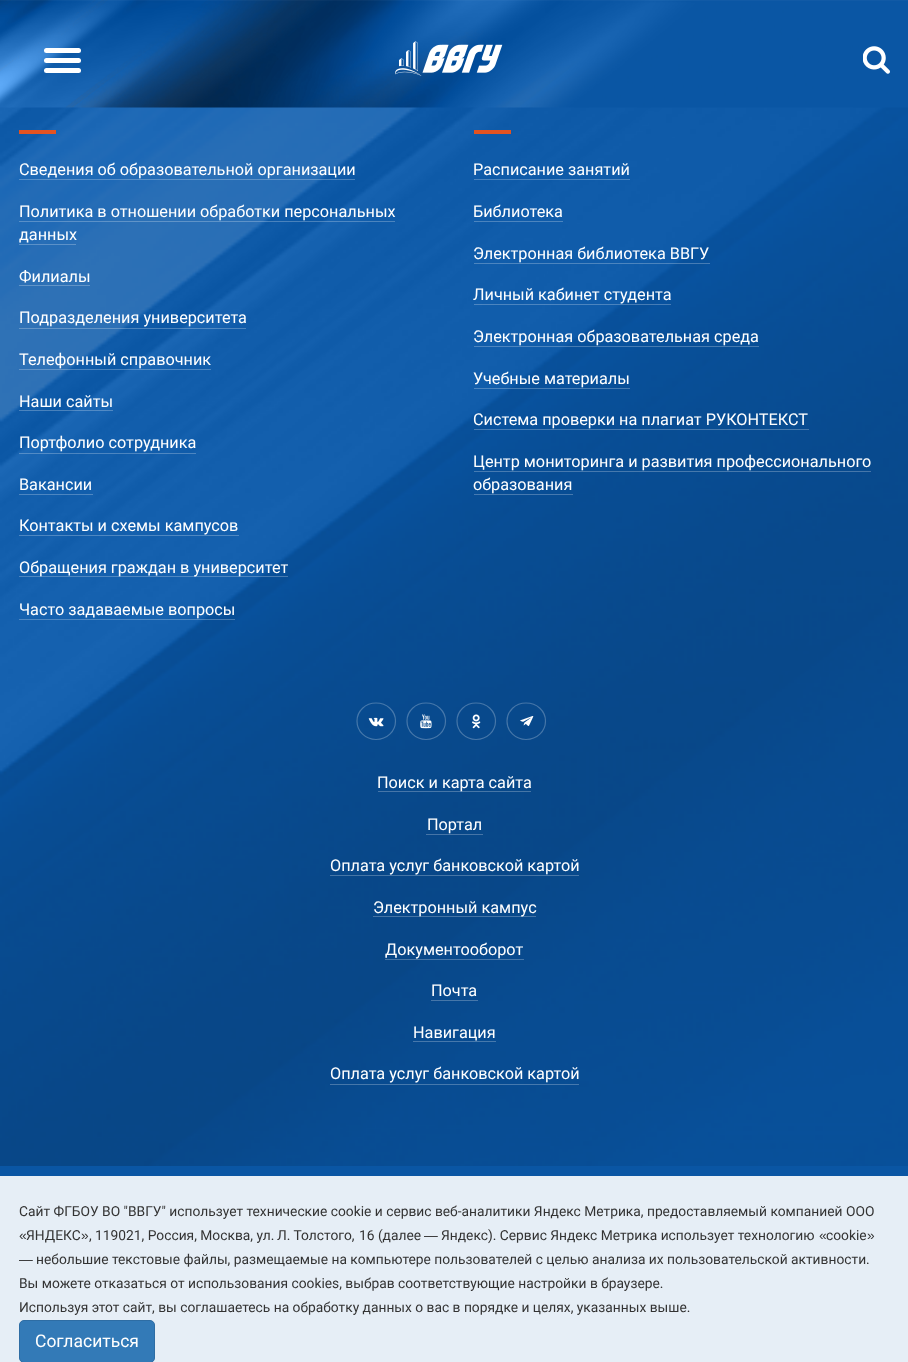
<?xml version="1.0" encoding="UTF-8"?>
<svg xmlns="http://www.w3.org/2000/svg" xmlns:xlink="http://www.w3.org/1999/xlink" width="908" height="1362">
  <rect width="100%" height="100%" fill="#ffffff" />
  <image x="0" y="107" width="908" height="1059" xlink:href="image4.png" />
  <image x="0" y="0" width="908" height="108" xlink:href="image1.png" />
  <rect x="44" y="48" width="37" height="5" rx="2.5" fill="#ffffff" />
  <rect x="44" y="58" width="37" height="5" rx="2.5" fill="#ffffff" />
  <rect x="44" y="68" width="37" height="5" rx="2.5" fill="#ffffff" />
  <image x="395" y="41" width="108" height="35" xlink:href="image2.png" />
  <image x="863" y="46" width="27" height="28" xlink:href="image3.png" />
  <rect x="19" y="130" width="37" height="4" fill="#e35321" />
  <rect x="19" y="179" width="336" height="1" fill="#ffffff" fill-opacity="0.25" />
  <rect x="19" y="221" width="376" height="1" fill="#ffffff" fill-opacity="0.25" />
  <rect x="19" y="244" width="57" height="1" fill="#ffffff" fill-opacity="0.25" />
  <rect x="19" y="285" width="71" height="1" fill="#ffffff" fill-opacity="0.25" />
  <rect x="19" y="328" width="227" height="1" fill="#ffffff" fill-opacity="0.25" />
  <rect x="19" y="369" width="192" height="1" fill="#ffffff" fill-opacity="0.25" />
  <rect x="19" y="410" width="94" height="1" fill="#ffffff" fill-opacity="0.25" />
  <rect x="19" y="453" width="177" height="1" fill="#ffffff" fill-opacity="0.25" />
  <rect x="19" y="494" width="74" height="1" fill="#ffffff" fill-opacity="0.25" />
  <rect x="19" y="535" width="220" height="1" fill="#ffffff" fill-opacity="0.25" />
  <rect x="19" y="576" width="269" height="1" fill="#ffffff" fill-opacity="0.25" />
  <rect x="19" y="619" width="216" height="1" fill="#ffffff" fill-opacity="0.25" />
  <rect x="474" y="130" width="37" height="4" fill="#e35321" />
  <rect x="474" y="179" width="156" height="1" fill="#ffffff" fill-opacity="0.25" />
  <rect x="474" y="221" width="89" height="1" fill="#ffffff" fill-opacity="0.25" />
  <rect x="474" y="263" width="236" height="1" fill="#ffffff" fill-opacity="0.25" />
  <rect x="474" y="304" width="197" height="1" fill="#ffffff" fill-opacity="0.25" />
  <rect x="474" y="346" width="285" height="1" fill="#ffffff" fill-opacity="0.25" />
  <rect x="474" y="388" width="156" height="1" fill="#ffffff" fill-opacity="0.25" />
  <rect x="474" y="429" width="335" height="1" fill="#ffffff" fill-opacity="0.25" />
  <rect x="474" y="471" width="397" height="1" fill="#ffffff" fill-opacity="0.25" />
  <rect x="474" y="494" width="99" height="1" fill="#ffffff" fill-opacity="0.25" />
  <path d="M 376 703 c 11 0 19.5 8 19.5 18 c 0 10.5 -8.5 18.5 -19.5 18.5 c -10.5 0 -19 -8 -19 -18.5 c 0 -10 8.5 -18 19 -18 z" fill="none" stroke="#4678ab" stroke-width="1.2" />
  <image x="368" y="717" width="16" height="10" xlink:href="image5.png" />
  <path d="M 426 703 c 11 0 19.5 8 19.5 18 c 0 10.5 -8.5 18.5 -19.5 18.5 c -10.5 0 -19 -8 -19 -18.5 c 0 -10 8.5 -18 19 -18 z" fill="none" stroke="#ffffff" stroke-opacity="0.25" stroke-width="1.2" />
  <image x="420" y="714" width="12" height="15" xlink:href="image6.png" />
  <path d="M 476 703 c 11 0 19.5 8 19.5 18 c 0 10.5 -8.5 18.5 -19.5 18.5 c -10.5 0 -19 -8 -19 -18.5 c 0 -10 8.5 -18 19 -18 z" fill="none" stroke="#ffffff" stroke-opacity="0.25" stroke-width="1.2" />
  <image x="472" y="714" width="9" height="15" xlink:href="image7.png" />
  <path d="M 526 703 c 11 0 19.5 8 19.5 18 c 0 10.5 -8.5 18.5 -19.5 18.5 c -10.5 0 -19 -8 -19 -18.5 c 0 -10 8.5 -18 19 -18 z" fill="none" stroke="#4676a8" stroke-width="1.2" />
  <image x="520" y="716" width="14" height="10" xlink:href="image8.png" />
  <rect x="378" y="791" width="153" height="1" fill="#ffffff" fill-opacity="0.25" />
  <rect x="426" y="834" width="57" height="1" fill="#4675a7" />
  <rect x="330" y="875" width="249" height="1" fill="#ffffff" fill-opacity="0.25" />
  <rect x="373" y="916" width="163" height="1" fill="#ffffff" fill-opacity="0.25" />
  <rect x="385" y="959" width="139" height="1" fill="#ffffff" fill-opacity="0.25" />
  <rect x="431" y="1000" width="47" height="1" fill="#ffffff" fill-opacity="0.25" />
  <rect x="413" y="1041" width="83" height="1" fill="#ffffff" fill-opacity="0.25" />
  <rect x="330" y="1084" width="249" height="1" fill="#ffffff" fill-opacity="0.25" />
  <rect y="1176" width="908" height="186" fill="#e6eef6" />
  <rect y="1166" width="908" height="10" fill="#0a56a4" />
  <rect x="19.5" y="1320.5" width="135" height="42" rx="4.5" fill="#337ab7" stroke="#2e6da4" />
  <text x="19" y="175" style="font-family: Roboto; font-size: 16.25px; fill: #ffffff">Сведения об образовательной организации</text>
  <text x="19" y="217" style="font-family: Roboto; font-size: 16.25px; fill: #ffffff">Политика в отношении обработки персональных</text>
  <text x="19" y="240" style="font-family: Roboto; font-size: 16.25px; fill: #ffffff">данных</text>
  <text x="19" y="282" style="font-family: Roboto; font-size: 16.25px; fill: #ffffff">Филиалы</text>
  <text x="19" y="323" style="font-family: Roboto; font-size: 16.25px; fill: #ffffff">Подразделения университета</text>
  <text x="19" y="365" style="font-family: Roboto; font-size: 16.25px; fill: #ffffff">Телефонный справочник</text>
  <text x="19" y="407" style="font-family: Roboto; font-size: 16.25px; fill: #ffffff">Наши сайты</text>
  <text x="19" y="448" style="font-family: Roboto; font-size: 16.25px; fill: #ffffff">Портфолио сотрудника</text>
  <text x="19" y="490" style="font-family: Roboto; font-size: 16.25px; fill: #ffffff">Вакансии</text>
  <text x="19" y="531" style="font-family: Roboto; font-size: 16.25px; fill: #ffffff">Контакты и схемы кампусов</text>
  <text x="19" y="573" style="font-family: Roboto; font-size: 16.25px; fill: #ffffff">Обращения граждан в университет</text>
  <text x="19" y="615" style="font-family: Roboto; font-size: 16.25px; fill: #ffffff">Часто задаваемые вопросы</text>
  <text x="473" y="175" style="font-family: Roboto; font-size: 16.25px; fill: #ffffff">Расписание занятий</text>
  <text x="473" y="217" style="font-family: Roboto; font-size: 16.25px; fill: #ffffff">Библиотека</text>
  <text x="473" y="259" style="font-family: Roboto; font-size: 16.25px; fill: #ffffff">Электронная библиотека ВВГУ</text>
  <text x="473" y="300" style="font-family: Roboto; font-size: 16.25px; fill: #ffffff">Личный кабинет студента</text>
  <text x="473" y="342" style="font-family: Roboto; font-size: 16.25px; fill: #ffffff">Электронная образовательная среда</text>
  <text x="473" y="384" style="font-family: Roboto; font-size: 16.25px; fill: #ffffff">Учебные материалы</text>
  <text x="473" y="425" style="font-family: Roboto; font-size: 16.25px; fill: #ffffff">Система проверки на плагиат РУКОНТЕКСТ</text>
  <text x="473" y="467" style="font-family: Roboto; font-size: 16.25px; fill: #ffffff">Центр мониторинга и развития профессионального</text>
  <text x="473" y="490" style="font-family: Roboto; font-size: 16.25px; fill: #ffffff">образования</text>
  <text x="377" y="788" style="font-family: Roboto; font-size: 16.25px; fill: #ffffff">Поиск и карта сайта</text>
  <text x="427" y="830" style="font-family: Roboto; font-size: 16.25px; fill: #ffffff">Портал</text>
  <text x="330" y="871" style="font-family: Roboto; font-size: 16.25px; fill: #ffffff">Оплата услуг банковской картой</text>
  <text x="373" y="913" style="font-family: Roboto; font-size: 16.25px; fill: #ffffff">Электронный кампус</text>
  <text x="385" y="955" style="font-family: Roboto; font-size: 16.25px; fill: #ffffff">Документооборот</text>
  <text x="431" y="996" style="font-family: Roboto; font-size: 16.25px; fill: #ffffff">Почта</text>
  <text x="413" y="1038" style="font-family: Roboto; font-size: 16.25px; fill: #ffffff">Навигация</text>
  <text x="330" y="1079" style="font-family: Roboto; font-size: 16.25px; fill: #ffffff">Оплата услуг банковской картой</text>
  <text x="19" y="1216" style="font-family: Roboto; font-size: 13.8px; fill: #333333">Cайт ФГБОУ ВО "ВВГУ" использует технические cookie и сервис веб-аналитики Яндекс Метрика, предоставляемый компанией ООО</text>
  <text x="19" y="1240" style="font-family: Liberation Sans; font-size: 13.8px; fill: #333333">«</text>
  <text x="26" y="1240" style="font-family: Roboto; font-size: 13.8px; fill: #333333">ЯНДЕКС</text>
  <text x="81" y="1240" style="font-family: Liberation Sans; font-size: 13.8px; fill: #333333">»</text>
  <text x="89" y="1240" style="font-family: Roboto; font-size: 13.8px; fill: #333333">, 119021, Россия, Москва, ул.</text>
  <text x="277" y="1240" style="font-family: Roboto; font-size: 13.8px; fill: #333333">Л. Толстого,</text>
  <text x="359" y="1240" style="font-family: Roboto; font-size: 13.8px; fill: #333333">16 (далее</text>
  <text x="424" y="1240" style="font-family: Liberation Sans; font-size: 13.8px; fill: #333333">—</text>
  <text x="441" y="1240" style="font-family: Roboto; font-size: 13.8px; fill: #333333">Яндекс). Сервис Яндекс Метрика использует технологию</text>
  <text x="819" y="1240" style="font-family: Liberation Sans; font-size: 13.8px; fill: #333333">«</text>
  <text x="826" y="1240" style="font-family: Roboto; font-size: 13.8px; fill: #333333">cookie</text>
  <text x="867" y="1240" style="font-family: Liberation Sans; font-size: 13.8px; fill: #333333">»</text>
  <text x="19" y="1264" style="font-family: Liberation Sans; font-size: 13.8px; fill: #333333">—</text>
  <text x="36" y="1264" style="font-family: Roboto; font-size: 13.8px; fill: #333333">небольшие текстовые файлы, размещаемые на компьютере пользователей с целью анализа их пользовательской активности.</text>
  <text x="19" y="1288" style="font-family: Roboto; font-size: 13.8px; fill: #333333">Вы можете отказаться от использования cookies, выбрав соответствующие настройки в браузере.</text>
  <text x="19" y="1312" style="font-family: Roboto; font-size: 13.8px; fill: #333333">Используя этот сайт, вы соглашаетесь на обработку данных о вас в порядке и целях, указанных выше.</text>
  <text x="35" y="1347" style="font-family: Roboto; font-size: 17.5px; fill: #ffffff">Согласиться</text>
</svg>
